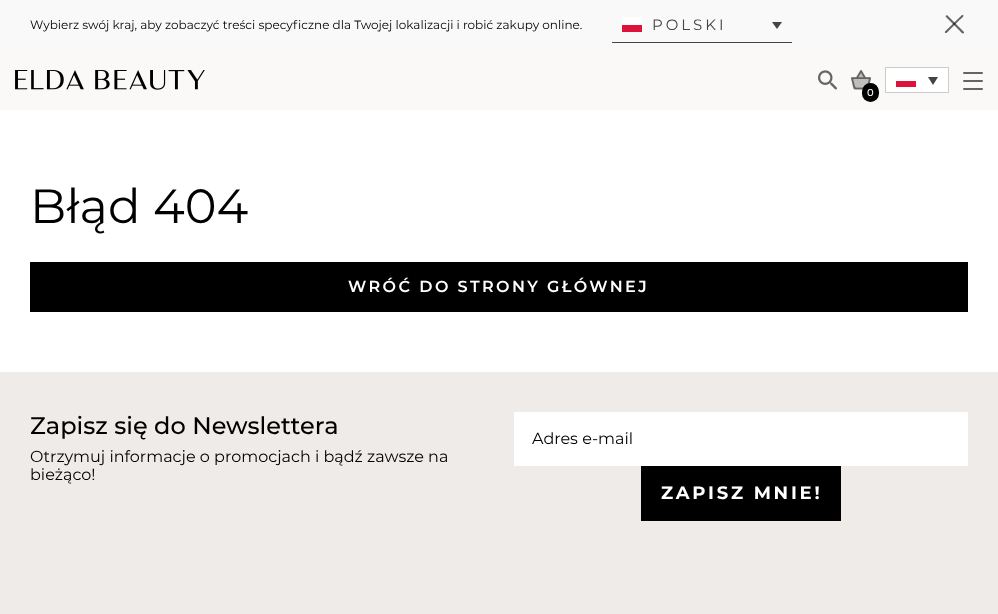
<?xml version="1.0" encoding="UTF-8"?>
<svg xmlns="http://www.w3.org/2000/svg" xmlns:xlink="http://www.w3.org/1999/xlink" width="998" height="614">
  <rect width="100%" height="100%" fill="#ffffff" />
  <rect width="998" height="50" fill="#f9f9f9" />
  <rect x="612" y="42" width="180" height="1" fill="#444444" />
  <rect x="622" y="17" width="20" height="8" fill="#ffffff" />
  <rect x="622" y="25" width="20" height="7" fill="#dc143c" />
  <path d="M 772 22 h 10 l -5 7 z" fill="#444444" />
  <path d="M 947.5 15.5 l 16.5 16.5 v 1 c -1.5 1.5 -3 -1 -4.5 -2.5 l -13.5 -13.5 l -0.5 -1 c 0.5 -1 1.5 -1 2 -0.5 z" fill="#646464" />
  <path d="M 945 31.5 l 17 -16.5 h 1 c 1.5 1 -1 3 -3 4.5 l -13.5 13.5 h -1 c -0.5 0 -1 -1 -0.5 -1.5 z" fill="#000000" fill-opacity="0.6" />
  <rect y="50" width="998" height="60" fill="#faf9f8" />
  <image x="15" y="70" width="190" height="20" xlink:href="image1.png" />
  <image x="818" y="70" width="19" height="20" xlink:href="image2.png" />
  <rect x="885.5" y="67.5" width="63" height="25" fill="#ffffff" stroke="#cdcdcd" />
  <rect x="896" y="81" width="20" height="6" fill="#dc143c" />
  <path d="M 928 77 h 10 l -5 8 z" fill="#444444" />
  <rect x="963" y="72" width="20" height="2" rx="1" fill="#646463" />
  <rect x="963" y="80" width="20" height="2" rx="1" fill="#646463" />
  <rect x="963" y="88" width="20" height="2" rx="1" fill="#646463" />
  <image x="851" y="70" width="20" height="20" xlink:href="image3.png" />
  <rect x="862" y="83" width="17" height="19" rx="8.5" fill="#000000" />
  <rect x="30" y="262" width="938" height="50" fill="#000000" />
  <rect y="372" width="998" height="242" fill="#efebe8" />
  <rect x="514" y="412" width="454" height="54" fill="#ffffff" />
  <rect x="641" y="466" width="200" height="55" fill="#000000" />
  <text x="30" y="29" style="font-family: Montserrat; font-size: 12px; fill: #000000">Wybierz swój kraj, aby zobaczyć treści specyficzne dla Twojej lokalizacji i robić zakupy online.</text>
  <text x="652" y="30" style="font-family: Montserrat; font-size: 15px; letter-spacing: 3px; fill: #444444">POLSKI</text>
  <text x="867" y="96" style="font-family: Montserrat; font-size: 10px; font-weight: 500; fill: #ffffff">0</text>
  <text x="30" y="223" style="font-family: Montserrat; font-size: 48px; fill: #000000">Błąd 404</text>
  <text x="348" y="292" style="font-family: Montserrat; font-size: 16px; font-weight: 600; letter-spacing: 2.4px; fill: #ffffff">WRÓĆ DO STRONY GŁÓWNEJ</text>
  <text x="30" y="434" style="font-family: Montserrat; font-size: 24px; font-weight: 500; fill: #000000">Zapisz się do Newslettera</text>
  <text x="30" y="462" style="font-family: Montserrat; font-size: 16px; fill: #000000">Otrzymuj informacje o promocjach i bądź zawsze na</text>
  <text x="30" y="480" style="font-family: Montserrat; font-size: 16px; fill: #000000">bieżąco!</text>
  <text x="532" y="444" style="font-family: Montserrat; font-size: 16px; fill: #000000">Adres e-mail</text>
  <text x="661" y="499" style="font-family: Montserrat; font-size: 18px; font-weight: bold; letter-spacing: 2.75px; fill: #ffffff">ZAPISZ MNIE!</text>
</svg>
